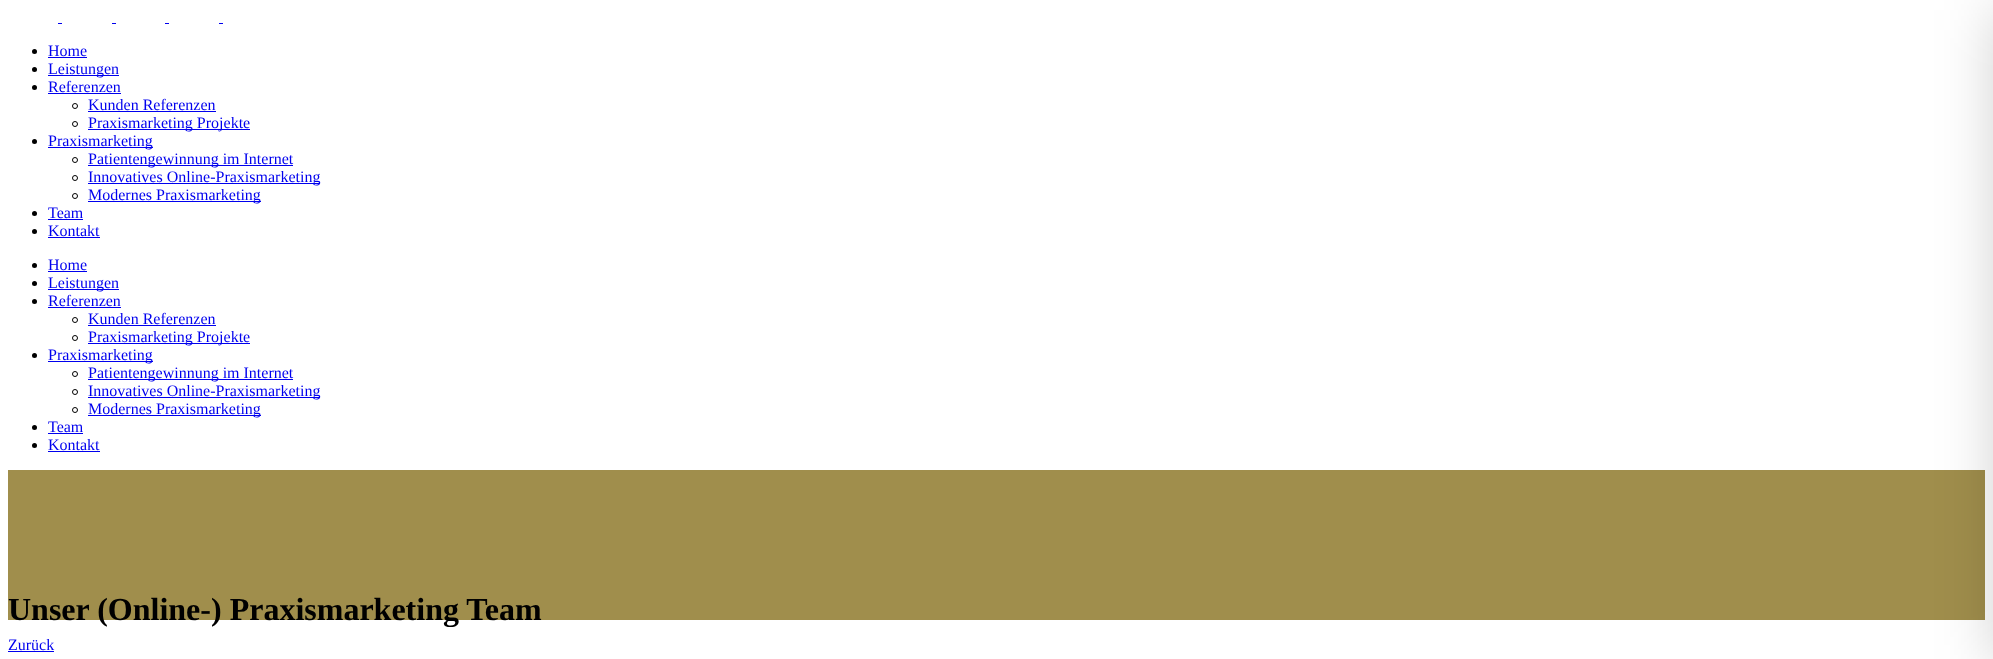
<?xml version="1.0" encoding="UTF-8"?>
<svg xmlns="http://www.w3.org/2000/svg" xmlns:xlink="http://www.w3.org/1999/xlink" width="1993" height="659">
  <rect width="100%" height="100%" fill="#ffffff" />
  <rect x="58" y="23" width="4" height="1" fill="#0000ee" />
  <rect x="112" y="23" width="4" height="1" fill="#0000ee" />
  <rect x="165" y="23" width="4" height="1" fill="#0000ee" />
  <rect x="219" y="23" width="4" height="1" fill="#0000ee" />
  <circle cx="34.5" cy="51.5" r="2.5" fill="#000000" />
  <rect x="48" y="57" width="39" height="1" fill="#0000ee" />
  <circle cx="34.5" cy="69.5" r="2.5" fill="#000000" />
  <rect x="48" y="75" width="71" height="1" fill="#0000ee" />
  <circle cx="34.5" cy="87.5" r="2.5" fill="#000000" />
  <rect x="48" y="93" width="73" height="1" fill="#0000ee" />
  <circle cx="75" cy="106" r="2.5" fill="none" stroke="#000000" />
  <rect x="88" y="111" width="128" height="1" fill="#0000ee" />
  <circle cx="75" cy="124" r="2.5" fill="none" stroke="#000000" />
  <rect x="88" y="129" width="162" height="1" fill="#0000ee" />
  <circle cx="34.5" cy="141.5" r="2.5" fill="#000000" />
  <rect x="48" y="147" width="105" height="1" fill="#0000ee" />
  <circle cx="75" cy="160" r="2.5" fill="none" stroke="#000000" />
  <rect x="88" y="165" width="205" height="1" fill="#0000ee" />
  <circle cx="75" cy="178" r="2.5" fill="none" stroke="#000000" />
  <rect x="88" y="183" width="232" height="1" fill="#0000ee" />
  <circle cx="75" cy="196" r="2.5" fill="none" stroke="#000000" />
  <rect x="88" y="201" width="173" height="1" fill="#0000ee" />
  <circle cx="34.5" cy="213.5" r="2.5" fill="#000000" />
  <rect x="48" y="219" width="35" height="1" fill="#0000ee" />
  <circle cx="34.5" cy="231.5" r="2.5" fill="#000000" />
  <rect x="48" y="237" width="52" height="1" fill="#0000ee" />
  <circle cx="34.5" cy="265.5" r="2.5" fill="#000000" />
  <rect x="48" y="271" width="39" height="1" fill="#0000ee" />
  <circle cx="34.5" cy="283.5" r="2.5" fill="#000000" />
  <rect x="48" y="289" width="71" height="1" fill="#0000ee" />
  <circle cx="34.5" cy="301.5" r="2.5" fill="#000000" />
  <rect x="48" y="307" width="73" height="1" fill="#0000ee" />
  <circle cx="75" cy="320" r="2.5" fill="none" stroke="#000000" />
  <rect x="88" y="325" width="128" height="1" fill="#0000ee" />
  <circle cx="75" cy="338" r="2.5" fill="none" stroke="#000000" />
  <rect x="88" y="343" width="162" height="1" fill="#0000ee" />
  <circle cx="34.5" cy="355.5" r="2.5" fill="#000000" />
  <rect x="48" y="361" width="105" height="1" fill="#0000ee" />
  <circle cx="75" cy="374" r="2.5" fill="none" stroke="#000000" />
  <rect x="88" y="379" width="205" height="1" fill="#0000ee" />
  <circle cx="75" cy="392" r="2.5" fill="none" stroke="#000000" />
  <rect x="88" y="397" width="232" height="1" fill="#0000ee" />
  <circle cx="75" cy="410" r="2.5" fill="none" stroke="#000000" />
  <rect x="88" y="415" width="173" height="1" fill="#0000ee" />
  <circle cx="34.5" cy="427.5" r="2.5" fill="#000000" />
  <rect x="48" y="433" width="35" height="1" fill="#0000ee" />
  <circle cx="34.5" cy="445.5" r="2.5" fill="#000000" />
  <rect x="48" y="451" width="52" height="1" fill="#0000ee" />
  <rect x="8" y="470" width="1977" height="150" fill="#a08e4c" />
  <rect x="8" y="651" width="46" height="1" fill="#0000ee" />
  <rect x="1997" y="10" width="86" height="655" fill="#000000" fill-opacity="0.2" filter="blur(30px)" />
  <text x="48" y="56" style="font-family: Liberation Serif; font-size: 16px; fill: #0000ee">Home</text>
  <text x="48" y="74" style="font-family: Liberation Serif; font-size: 16px; fill: #0000ee">Leistungen</text>
  <text x="48" y="92" style="font-family: Liberation Serif; font-size: 16px; fill: #0000ee">Referenzen</text>
  <text x="88" y="110" style="font-family: Liberation Serif; font-size: 16px; fill: #0000ee">Kunden Referenzen</text>
  <text x="88" y="128" style="font-family: Liberation Serif; font-size: 16px; fill: #0000ee">Praxismarketing Projekte</text>
  <text x="48" y="146" style="font-family: Liberation Serif; font-size: 16px; fill: #0000ee">Praxismarketing</text>
  <text x="88" y="164" style="font-family: Liberation Serif; font-size: 16px; fill: #0000ee">Patientengewinnung im Internet</text>
  <text x="88" y="182" style="font-family: Liberation Serif; font-size: 16px; fill: #0000ee">Innovatives Online-Praxismarketing</text>
  <text x="88" y="200" style="font-family: Liberation Serif; font-size: 16px; fill: #0000ee">Modernes Praxismarketing</text>
  <text x="48" y="218" style="font-family: Liberation Serif; font-size: 16px; fill: #0000ee">Team</text>
  <text x="48" y="236" style="font-family: Liberation Serif; font-size: 16px; fill: #0000ee">Kontakt</text>
  <text x="48" y="270" style="font-family: Liberation Serif; font-size: 16px; fill: #0000ee">Home</text>
  <text x="48" y="288" style="font-family: Liberation Serif; font-size: 16px; fill: #0000ee">Leistungen</text>
  <text x="48" y="306" style="font-family: Liberation Serif; font-size: 16px; fill: #0000ee">Referenzen</text>
  <text x="88" y="324" style="font-family: Liberation Serif; font-size: 16px; fill: #0000ee">Kunden Referenzen</text>
  <text x="88" y="342" style="font-family: Liberation Serif; font-size: 16px; fill: #0000ee">Praxismarketing Projekte</text>
  <text x="48" y="360" style="font-family: Liberation Serif; font-size: 16px; fill: #0000ee">Praxismarketing</text>
  <text x="88" y="378" style="font-family: Liberation Serif; font-size: 16px; fill: #0000ee">Patientengewinnung im Internet</text>
  <text x="88" y="396" style="font-family: Liberation Serif; font-size: 16px; fill: #0000ee">Innovatives Online-Praxismarketing</text>
  <text x="88" y="414" style="font-family: Liberation Serif; font-size: 16px; fill: #0000ee">Modernes Praxismarketing</text>
  <text x="48" y="432" style="font-family: Liberation Serif; font-size: 16px; fill: #0000ee">Team</text>
  <text x="48" y="450" style="font-family: Liberation Serif; font-size: 16px; fill: #0000ee">Kontakt</text>
  <text x="8" y="620" style="font-family: Liberation Serif; font-size: 32px; font-weight: bold; fill: #000000">Unser (Online-) Praxismarketing Team</text>
  <text x="8" y="650" style="font-family: Liberation Serif; font-size: 16px; fill: #0000ee">Zurück</text>
</svg>
